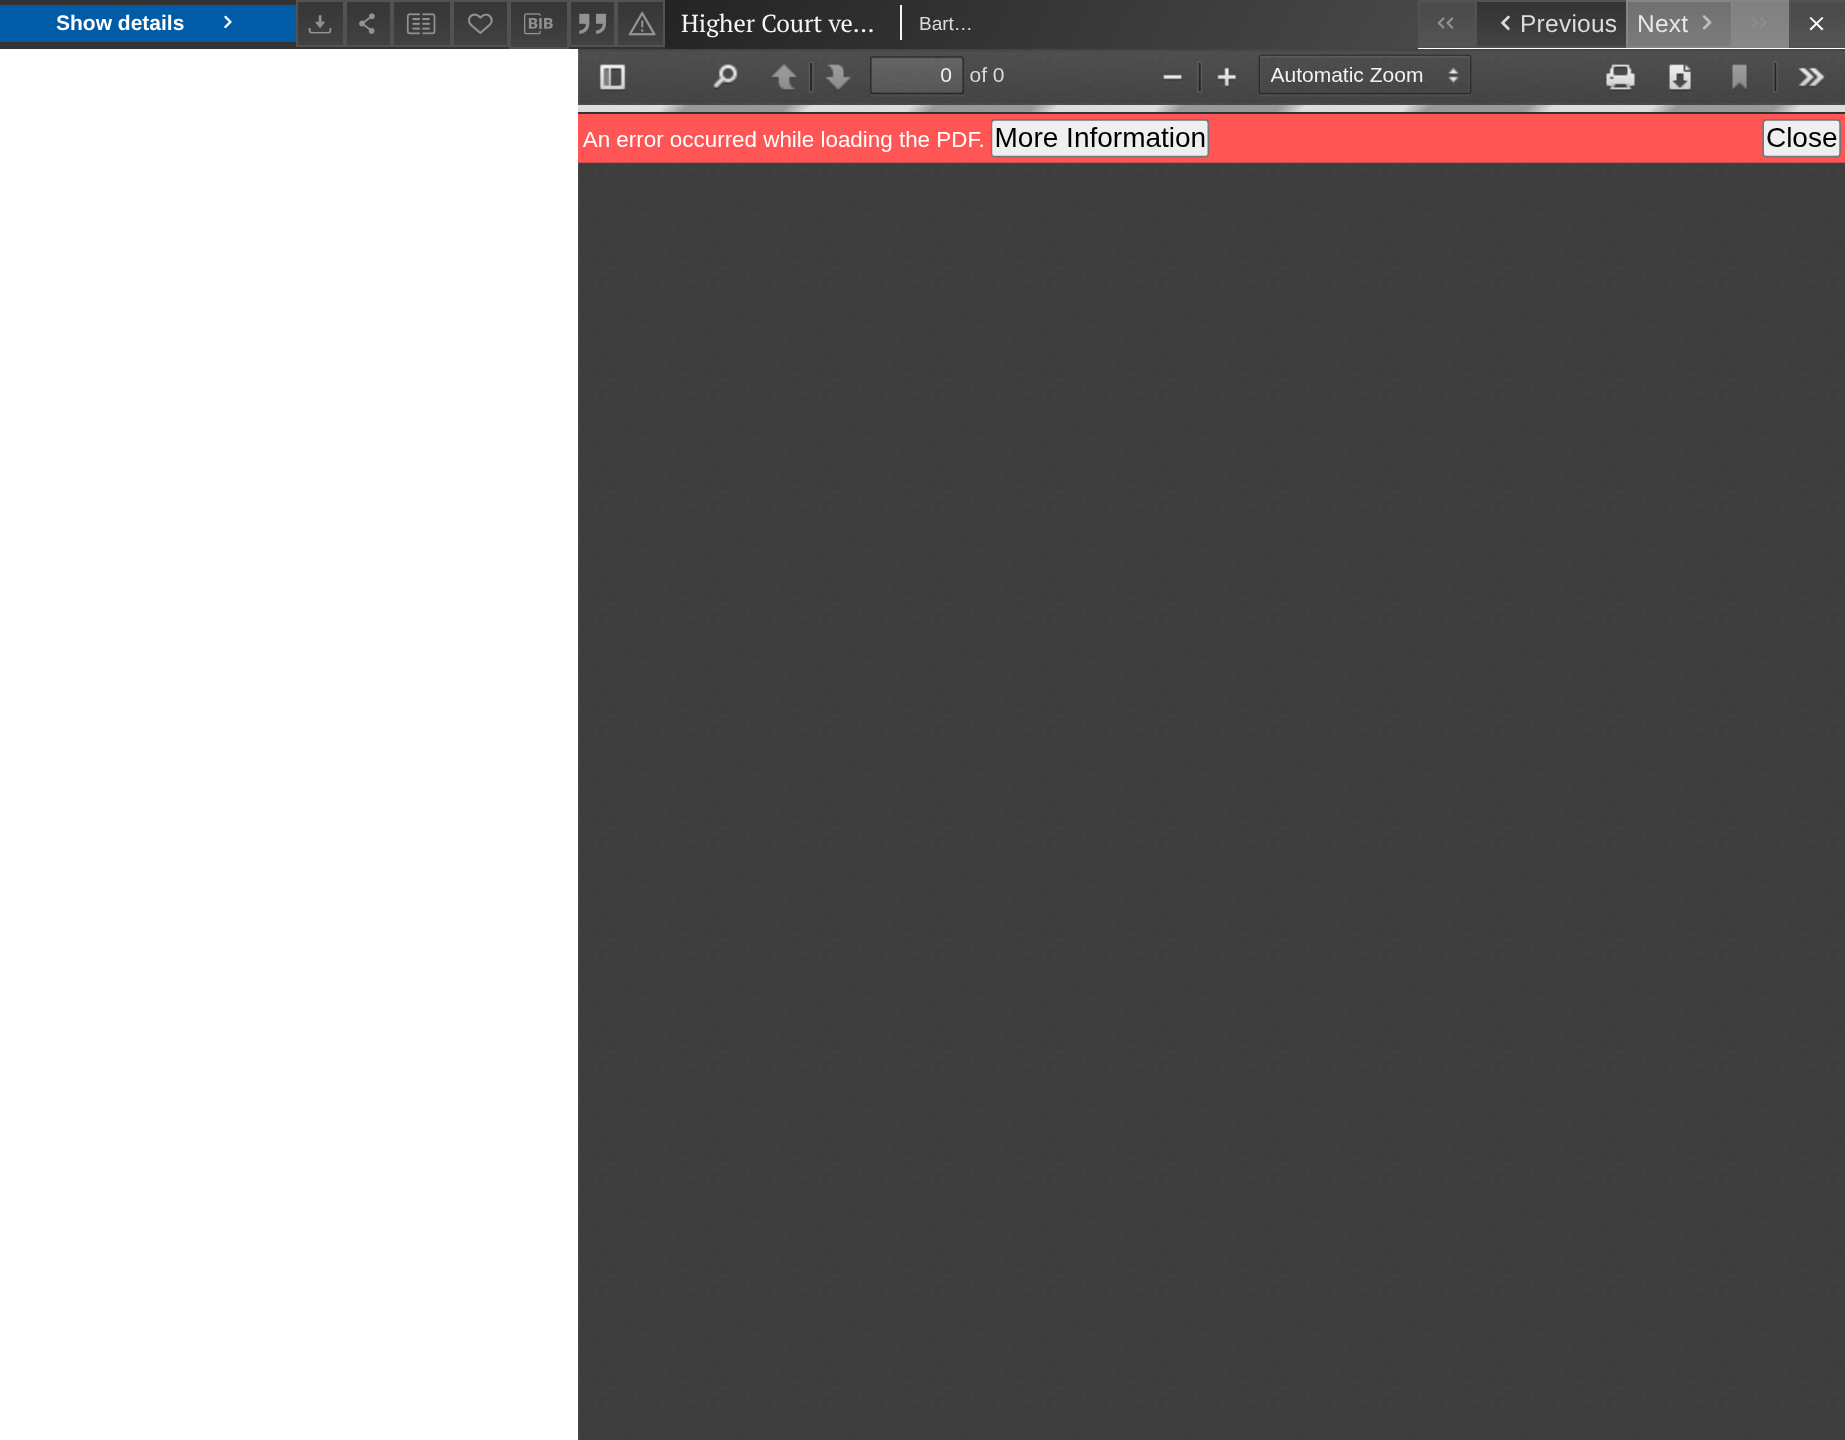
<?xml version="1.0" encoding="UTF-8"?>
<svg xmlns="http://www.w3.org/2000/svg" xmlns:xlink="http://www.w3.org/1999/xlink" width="1845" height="1440">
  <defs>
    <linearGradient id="g1" gradientUnits="userSpaceOnUse" x1="320" y1="1.7" x2="320" y2="89"><stop offset="0.11" stop-color="#383838" /><stop offset="1" stop-color="#4f4f4f" /></linearGradient>
    <linearGradient id="g2" gradientUnits="userSpaceOnUse" x1="368" y1="1.7" x2="368" y2="89"><stop offset="0.11" stop-color="#383838" /><stop offset="1" stop-color="#4f4f4f" /></linearGradient>
    <linearGradient id="g3" gradientUnits="userSpaceOnUse" x1="422" y1="1.7" x2="422" y2="89"><stop offset="0.11" stop-color="#383838" /><stop offset="1" stop-color="#4f4f4f" /></linearGradient>
    <linearGradient id="g4" gradientUnits="userSpaceOnUse" x1="480" y1="1.7" x2="480" y2="89"><stop offset="0.11" stop-color="#383838" /><stop offset="1" stop-color="#4f4f4f" /></linearGradient>
    <linearGradient id="g5" gradientUnits="userSpaceOnUse" x1="539" y1="1.7" x2="539" y2="93"><stop offset="0.11" stop-color="#383838" /><stop offset="1" stop-color="#4f4f4f" /></linearGradient>
    <linearGradient id="g6" gradientUnits="userSpaceOnUse" x1="592" y1="1.7" x2="592" y2="89"><stop offset="0.11" stop-color="#383838" /><stop offset="1" stop-color="#4f4f4f" /></linearGradient>
    <linearGradient id="g7" gradientUnits="userSpaceOnUse" x1="641" y1="1.7" x2="641" y2="89"><stop offset="0.11" stop-color="#383838" /><stop offset="1" stop-color="#4f4f4f" /></linearGradient>
    <linearGradient id="g8" gradientUnits="userSpaceOnUse" x1="743" y1="-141" x2="1339" y2="190"><stop offset="0" stop-color="#242424" /><stop offset="1" stop-color="#484848" /></linearGradient>
    <linearGradient id="g9" gradientUnits="userSpaceOnUse" x1="1447" y1="1.7" x2="1447" y2="89"><stop offset="0.11" stop-color="#4b4b4b" /><stop offset="1" stop-color="#626262" /></linearGradient>
    <linearGradient id="g10" gradientUnits="userSpaceOnUse" x1="1761" y1="1.7" x2="1761" y2="89"><stop offset="0.11" stop-color="#818181" /><stop offset="1" stop-color="#919191" /></linearGradient>
    <linearGradient id="g11" gradientUnits="userSpaceOnUse" x1="1818" y1="1.7" x2="1818" y2="89"><stop offset="0.11" stop-color="#4b4b4b" /><stop offset="1" stop-color="#626262" /></linearGradient>
    <linearGradient id="g12" gradientUnits="userSpaceOnUse" x1="1551" y1="1.7" x2="1551" y2="46"><stop offset="0" stop-color="#333333" /><stop offset="1" stop-color="#434343" /></linearGradient>
    <linearGradient id="g13" gradientUnits="userSpaceOnUse" x1="1679" y1="1.7" x2="1679" y2="46"><stop offset="0" stop-color="#707070" /><stop offset="1" stop-color="#7b7b7b" /></linearGradient>
  </defs>
  <rect width="100%" height="100%" fill="#ffffff" />
  <rect width="665" height="49" fill="#333333" />
  <rect y="5" width="296" height="37" fill="#005ca7" />
  <image x="224" y="15" width="8" height="14" xlink:href="image1.png" />
  <rect x="298" y="2" width="45" height="43" fill="url(#g1)" />
  <rect x="297" y="1" width="47" height="45" fill="none" stroke="#525252" stroke-width="2" />
  <image x="308" y="15" width="24" height="19" xlink:href="image2.png" />
  <rect x="347" y="2" width="43" height="43" fill="url(#g2)" />
  <rect x="346" y="1" width="45" height="45" fill="none" stroke="#525252" stroke-width="2" />
  <image x="359" y="13" width="16" height="21" xlink:href="image3.png" />
  <rect x="394" y="2" width="56" height="43" fill="url(#g3)" />
  <rect x="393" y="1" width="58" height="45" fill="none" stroke="#525252" stroke-width="2" />
  <image x="406" y="13" width="30" height="22" xlink:href="image4.png" />
  <rect x="454" y="2" width="53" height="43" fill="url(#g4)" />
  <rect x="453" y="1" width="55" height="45" fill="none" stroke="#525252" stroke-width="2" />
  <image x="468" y="13" width="25" height="22" xlink:href="image5.png" />
  <rect x="511" y="2" width="56" height="45" fill="url(#g5)" />
  <rect x="510" y="1" width="58" height="47" fill="none" stroke="#525252" stroke-width="2" />
  <image x="524" y="13" width="29" height="22" xlink:href="image6.png" />
  <rect x="571" y="2" width="43" height="43" fill="url(#g6)" />
  <rect x="570" y="1" width="45" height="45" fill="none" stroke="#525252" stroke-width="2" />
  <image x="579" y="13" width="27" height="21" xlink:href="image7.png" />
  <rect x="618" y="2" width="45" height="43" fill="url(#g7)" />
  <rect x="617" y="1" width="47" height="45" fill="none" stroke="#525252" stroke-width="2" />
  <image x="628" y="11" width="28" height="25" xlink:href="image8.png" />
  <rect x="665" width="753" height="49" fill="url(#g8)" />
  <rect x="900" y="5" width="2" height="35" fill="#f5f5f5" />
  <rect x="1420" y="2" width="55" height="44" fill="url(#g9)" />
  <rect x="1418" width="208" height="2" fill="#525252" />
  <rect x="1418" y="46" width="208" height="2" fill="#525252" />
  <rect x="1418" width="2" height="47" fill="#525252" />
  <image x="1437" y="17" width="8" height="12" xlink:href="image9.png" />
  <image x="1446" y="17" width="8" height="12" xlink:href="image10.png" />
  <rect x="1733" y="2" width="56" height="44" fill="url(#g10)" />
  <rect x="1626" width="163" height="2" fill="#868686" />
  <rect x="1626" y="46" width="163" height="2" fill="#868686" />
  <rect x="1731" width="2" height="47" fill="#868686" />
  <image x="1751" y="17" width="7" height="11" xlink:href="image11.png" />
  <image x="1760" y="17" width="7" height="11" xlink:href="image12.png" />
  <rect x="1791" y="2" width="54" height="44" fill="url(#g11)" />
  <rect x="1789" width="56" height="2" fill="#525252" />
  <rect x="1789" y="46" width="56" height="2" fill="#525252" />
  <rect x="1789" width="2" height="47" fill="#525252" />
  <path d="M 1809.5 29 l 12.5 -12 l 1.5 1 l -12.5 12.5 z" fill="#ffffff" />
  <path d="M 1811 17 l 12.5 12 l -1.5 1.5 l -12.5 -12.5 z" fill="#ffffff" />
  <rect x="1477" y="2" width="149" height="44" fill="url(#g12)" />
  <rect x="1475" width="2" height="47" fill="#525252" />
  <image x="1500" y="15" width="10" height="15" xlink:href="image13.png" />
  <rect x="1628" y="2" width="103" height="44" fill="url(#g13)" />
  <rect x="1626" width="2" height="47" fill="#868686" />
  <image x="1702" y="15" width="10" height="15" xlink:href="image14.png" />
  <image x="578" y="49" width="1267" height="1391" xlink:href="image15.png" />
  <text x="56" y="30" style="font-family: Liberation Sans; font-size: 21px; font-weight: bold; fill: #ffffff">Show details</text>
  <text x="681" y="32" style="font-family: PT Serif; font-size: 24.5px; fill: #f5f5f5">Higher Court ve…</text>
  <text x="919" y="30" style="font-family: Liberation Sans; font-size: 19px; fill: #dcdcdc">Bart…</text>
  <text x="1520" y="32" style="font-family: Liberation Sans; font-size: 24.5px; letter-spacing: 0.25px; fill: #dcdcdc">Previous</text>
  <text x="1637" y="32" style="font-family: Liberation Sans; font-size: 24.5px; letter-spacing: 0.25px; fill: #e7e7e7">Next</text>
</svg>
